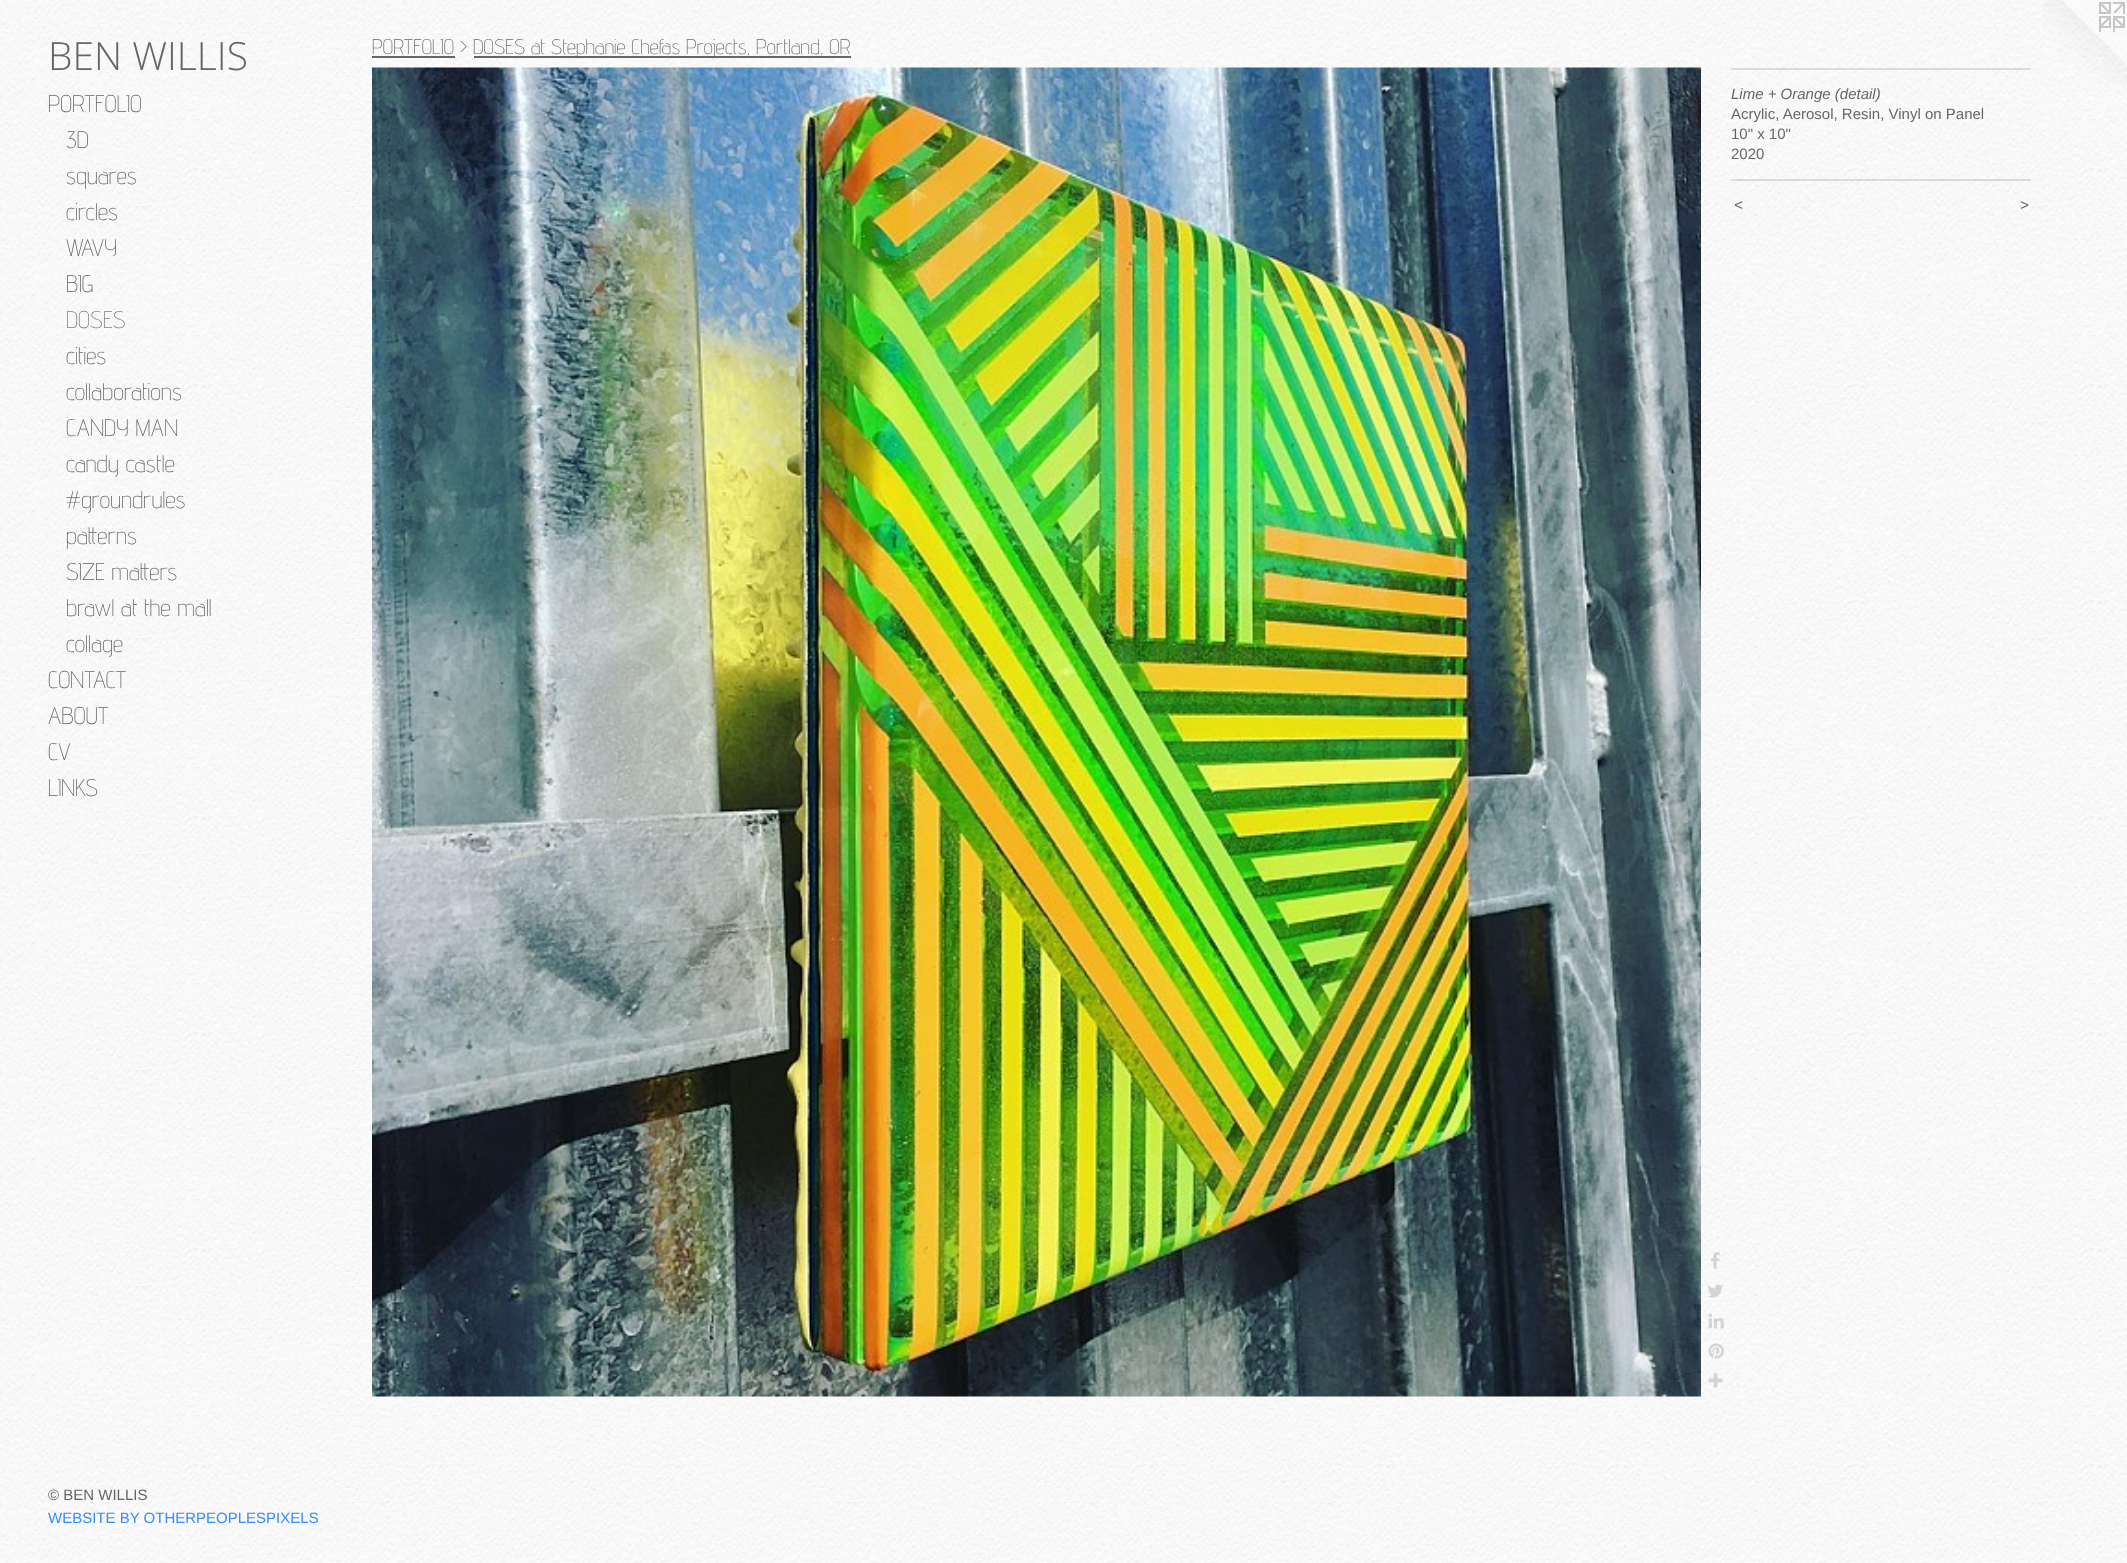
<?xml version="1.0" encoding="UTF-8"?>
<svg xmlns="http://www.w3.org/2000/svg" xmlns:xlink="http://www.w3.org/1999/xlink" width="2127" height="1563">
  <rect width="100%" height="100%" fill="#ffffff" />
  <image x="0" y="0" width="2127" height="1563" xlink:href="image1.png" />
  <rect x="372" y="56" width="83" height="2" fill="#666666" />
  <rect x="474" y="56" width="377" height="2" fill="#666666" />
  <image x="372" y="67" width="1329" height="1330" xlink:href="image2.png" />
  <image x="1711" y="1252" width="9" height="17" xlink:href="image3.png" />
  <image x="1708" y="1284" width="15" height="14" xlink:href="image4.png" />
  <image x="1708" y="1313" width="16" height="16" xlink:href="image5.png" />
  <image x="1708" y="1343" width="16" height="16" xlink:href="image6.png" />
  <image x="1708" y="1373" width="15" height="15" xlink:href="image7.png" />
  <rect x="1731" y="68" width="300" height="2" fill="#666666" fill-opacity="0.2" />
  <rect x="1731" y="179" width="300" height="2" fill="#666666" fill-opacity="0.2" />
  <image x="2043" y="0" width="84" height="84" xlink:href="image8.png" />
  <text x="48" y="70" style="font-family: Open Sans; font-size: 39px; font-weight: 300; fill: #666666">BEN WILLIS</text>
  <text x="48" y="112" style="font-family: Advent Pro; font-size: 24px; font-weight: 200; fill: #666666">PORTFOLIO</text>
  <text x="66" y="148" style="font-family: Advent Pro; font-size: 24px; font-weight: 200; fill: #666666">3D</text>
  <text x="66" y="184" style="font-family: Advent Pro; font-size: 24px; font-weight: 200; fill: #666666">squares</text>
  <text x="66" y="220" style="font-family: Advent Pro; font-size: 24px; font-weight: 200; fill: #666666">circles</text>
  <text x="66" y="256" style="font-family: Advent Pro; font-size: 24px; font-weight: 200; fill: #666666">WAVY</text>
  <text x="66" y="292" style="font-family: Advent Pro; font-size: 24px; font-weight: 200; fill: #666666">BIG</text>
  <text x="66" y="328" style="font-family: Advent Pro; font-size: 24px; font-weight: 200; fill: #808080">DOSES</text>
  <text x="66" y="364" style="font-family: Advent Pro; font-size: 24px; font-weight: 200; fill: #666666">cities</text>
  <text x="66" y="400" style="font-family: Advent Pro; font-size: 24px; font-weight: 200; fill: #666666">collaborations</text>
  <text x="66" y="436" style="font-family: Advent Pro; font-size: 24px; font-weight: 200; fill: #666666">CANDY MAN</text>
  <text x="66" y="472" style="font-family: Advent Pro; font-size: 24px; font-weight: 200; fill: #666666">candy castle</text>
  <text x="66" y="508" style="font-family: Advent Pro; font-size: 24px; font-weight: 200; fill: #666666">#groundrules</text>
  <text x="66" y="544" style="font-family: Advent Pro; font-size: 24px; font-weight: 200; fill: #666666">patterns</text>
  <text x="66" y="580" style="font-family: Advent Pro; font-size: 24px; font-weight: 200; fill: #666666">SIZE matters</text>
  <text x="66" y="616" style="font-family: Advent Pro; font-size: 24px; font-weight: 200; fill: #666666">brawl at the mall</text>
  <text x="66" y="652" style="font-family: Advent Pro; font-size: 24px; font-weight: 200; fill: #666666">collage</text>
  <text x="48" y="688" style="font-family: Advent Pro; font-size: 24px; font-weight: 200; fill: #666666">CONTACT</text>
  <text x="48" y="724" style="font-family: Advent Pro; font-size: 24px; font-weight: 200; fill: #666666">ABOUT</text>
  <text x="48" y="760" style="font-family: Advent Pro; font-size: 24px; font-weight: 200; fill: #666666">CV</text>
  <text x="48" y="796" style="font-family: Advent Pro; font-size: 24px; font-weight: 200; fill: #666666">LINKS</text>
  <text x="48" y="1500" style="font-family: Liberation Sans; font-size: 15px; fill: #666666">© BEN WILLIS</text>
  <text x="48" y="1523" style="font-family: Liberation Sans; font-size: 15px; fill: #368cfc">WEBSITE BY OTHERPEOPLESPIXELS</text>
  <text x="372" y="54" style="font-family: Advent Pro; font-size: 21px; font-weight: 200; fill: #666666">PORTFOLIO &gt;</text>
  <text x="473" y="54" style="font-family: Advent Pro; font-size: 21px; font-weight: 200; fill: #666666">DOSES at Stephanie Chefas Projects, Portland, OR</text>
  <text x="1731" y="99" style="font-family: Liberation Sans; font-size: 15px; font-style: italic; fill: #666666">Lime + Orange (detail)</text>
  <text x="1731" y="119" style="font-family: Liberation Sans; font-size: 15px; fill: #666666">Acrylic, Aerosol, Resin, Vinyl on Panel</text>
  <text x="1731" y="139" style="font-family: Liberation Sans; font-size: 15px; fill: #666666">10" x 10"</text>
  <text x="1731" y="159" style="font-family: Liberation Sans; font-size: 15px; fill: #666666">2020</text>
  <text x="1734" y="210" style="font-family: Liberation Sans; font-size: 15px; font-style: italic; letter-spacing: 2px; fill: #666666">&lt;</text>
  <text x="2020" y="210" style="font-family: Liberation Sans; font-size: 15px; font-style: italic; letter-spacing: 2px; fill: #666666">&gt;</text>
</svg>
